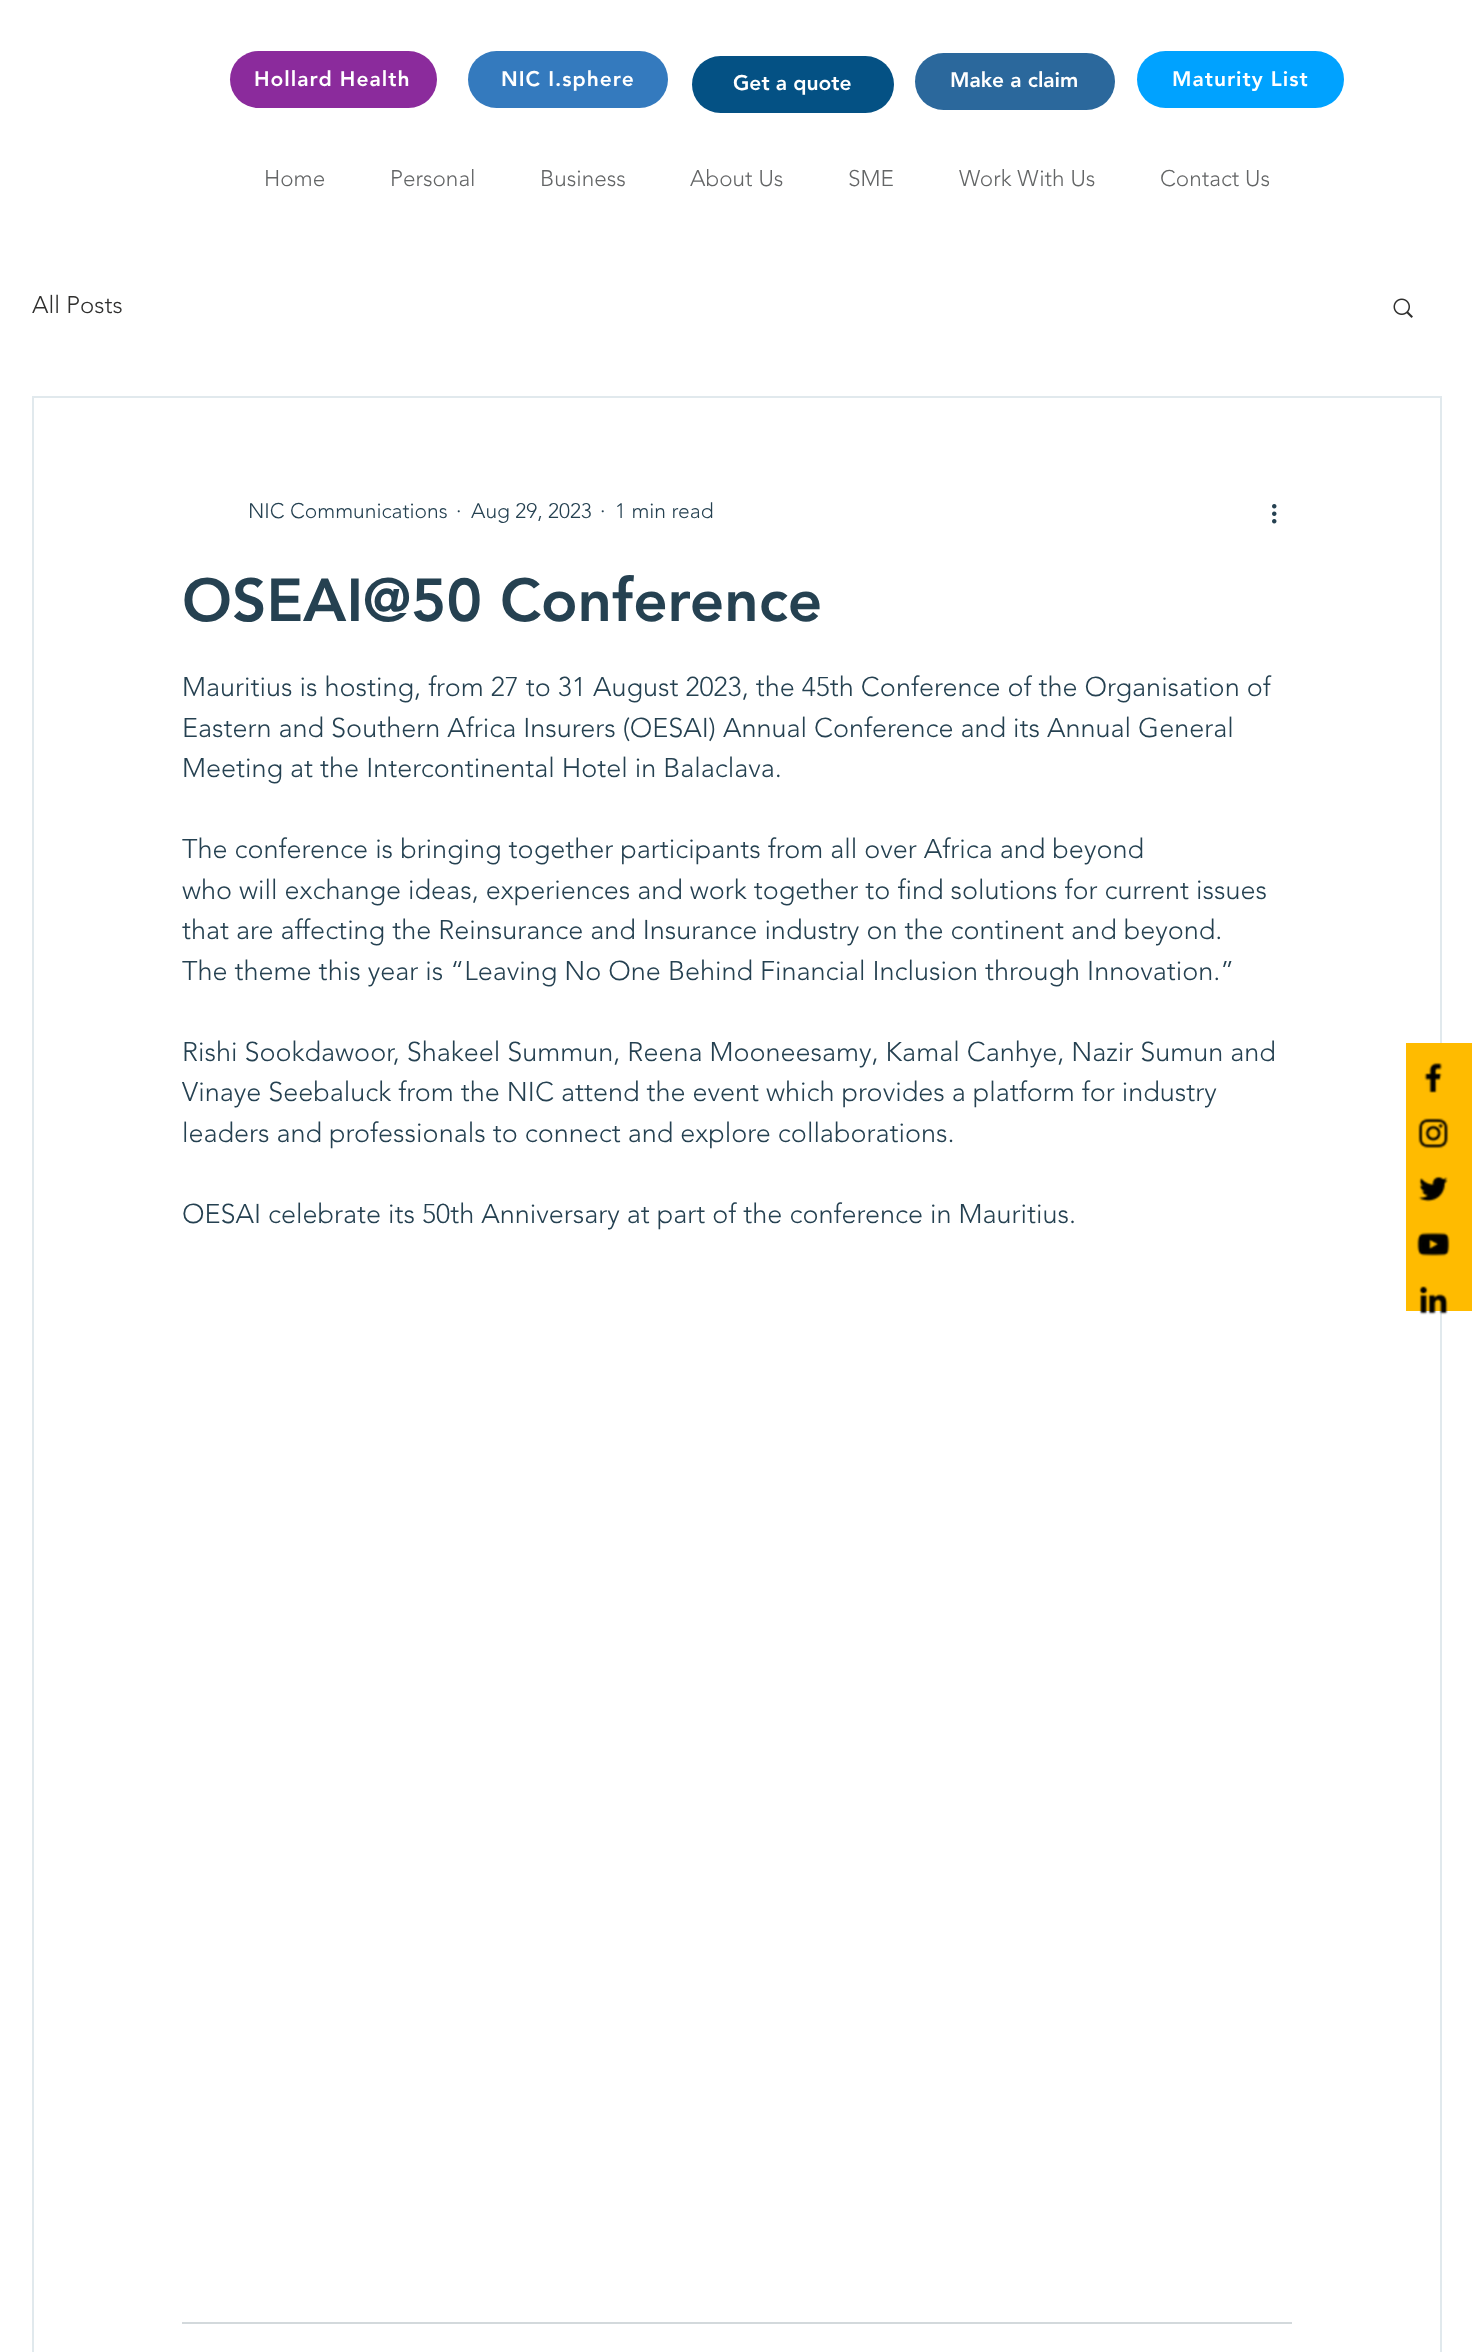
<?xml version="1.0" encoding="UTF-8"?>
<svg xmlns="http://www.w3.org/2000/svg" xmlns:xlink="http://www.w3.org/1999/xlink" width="1472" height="2352">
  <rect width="100%" height="100%" fill="#ffffff" />
  <rect x="230" y="51" width="207" height="57" rx="28.5" fill="#8b2b9c" />
  <rect x="468" y="51" width="200" height="57" rx="28.5" fill="#347abe" />
  <rect x="1137" y="51" width="207" height="57" rx="28.5" fill="#00a2ff" />
  <rect x="692" y="56" width="202" height="57" rx="28.5" fill="#045184" />
  <rect x="915" y="53" width="200" height="57" rx="28.5" fill="#2b689c" />
  <image x="1393" y="298" width="20" height="20" xlink:href="image1.png" />
  <rect x="33" y="397" width="1408" height="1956" fill="none" stroke="#e1e9ed" stroke-width="2" />
  <image x="1272" y="504" width="5" height="20" xlink:href="image2.png" />
  <rect x="182" y="2322" width="1110" height="2" fill="#d3d9dc" />
  <rect x="1406" y="1043" width="66" height="268" fill="#ffbb00" />
  <image x="1424" y="1062" width="19" height="31" xlink:href="image3.png" />
  <image x="1418" y="1118" width="31" height="31" xlink:href="image4.png" />
  <image x="1418" y="1176" width="30" height="26" xlink:href="image5.png" />
  <image x="1416" y="1232" width="34" height="25" xlink:href="image6.png" />
  <image x="1419" y="1286" width="29" height="29" xlink:href="image7.png" />
  <text x="254" y="86" style="font-family: 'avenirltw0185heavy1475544'; font-size: 21px; font-weight: 900; letter-spacing: 1px; fill: #ffffff">Hollard Health</text>
  <text x="501" y="86" style="font-family: 'avenirltw0185heavy1475544'; font-size: 21px; font-weight: 900; letter-spacing: 1px; fill: #ffffff">NIC I.sphere</text>
  <text x="1172" y="86" style="font-family: 'avenirltw0185heavy1475544'; font-size: 21px; font-weight: 900; letter-spacing: 1px; fill: #ffffff">Maturity List</text>
  <text x="264" y="186" style="font-family: 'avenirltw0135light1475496'; font-size: 22.5px; font-weight: 300; fill: #646667">Home</text>
  <text x="390" y="186" style="font-family: 'avenirltw0135light1475496'; font-size: 22.5px; font-weight: 300; fill: #646667">Personal</text>
  <text x="540" y="186" style="font-family: 'avenirltw0135light1475496'; font-size: 22.5px; font-weight: 300; fill: #646667">Business</text>
  <text x="690" y="186" style="font-family: 'avenirltw0135light1475496'; font-size: 22.5px; font-weight: 300; fill: #646667">About Us</text>
  <text x="848" y="186" style="font-family: 'avenirltw0135light1475496'; font-size: 22.5px; font-weight: 300; fill: #646667">SME</text>
  <text x="959" y="186" style="font-family: 'avenirltw0135light1475496'; font-size: 22.5px; font-weight: 300; fill: #646667">Work With Us</text>
  <text x="1160" y="186" style="font-family: 'avenirltw0135light1475496'; font-size: 22.5px; font-weight: 300; fill: #646667">Contact Us</text>
  <text x="733" y="90" style="font-family: 'avenirltw0185heavy1475544'; font-size: 21px; font-weight: 900; fill: #ffffff">Get a quote</text>
  <text x="950" y="87" style="font-family: 'avenirltw0185heavy1475544'; font-size: 21px; font-weight: 900; fill: #ffffff">Make a claim</text>
  <text x="32" y="313" style="font-family: 'avenirltw0135light1475496'; font-size: 24px; font-weight: 300; fill: #2f2f2e">All Posts</text>
  <text x="248" y="518" style="font-family: 'avenirltw0135light1475496'; font-size: 21px; font-weight: 300; fill: #254151">NIC Communications</text>
  <text x="456" y="518" style="font-family: 'avenirltw0135light1475496'; font-size: 21px; font-weight: 300; fill: #254151">·</text>
  <text x="471" y="518" style="font-family: 'avenirltw0135light1475496'; font-size: 21px; font-weight: 300; fill: #254151">Aug 29, 2023</text>
  <text x="600" y="518" style="font-family: 'avenirltw0135light1475496'; font-size: 21px; font-weight: 300; fill: #254151">·</text>
  <text x="615" y="518" style="font-family: 'avenirltw0135light1475496'; font-size: 21px; font-weight: 300; fill: #254151">1 min read</text>
  <text x="182" y="621" style="font-family: 'avenirltw0185heavy1475544'; font-size: 60px; font-weight: 900; fill: #254151">OSEAI@50 Conference</text>
  <text x="182" y="696" style="font-family: 'avenirltw0135light1475496'; font-size: 27px; font-weight: 300; fill: #254151">Mauritius is hosting, from 27 to 31 August 2023, the 45th Conference of the Organisation of</text>
  <text x="182" y="737" style="font-family: 'avenirltw0135light1475496'; font-size: 27px; font-weight: 300; fill: #254151">Eastern and Southern Africa Insurers (OESAI) Annual Conference and its Annual General</text>
  <text x="182" y="777" style="font-family: 'avenirltw0135light1475496'; font-size: 27px; font-weight: 300; fill: #254151">Meeting at the Intercontinental Hotel in Balaclava.</text>
  <text x="182" y="858" style="font-family: 'avenirltw0135light1475496'; font-size: 27px; font-weight: 300; fill: #254151">The conference is bringing together participants from all over Africa and beyond</text>
  <text x="182" y="899" style="font-family: 'avenirltw0135light1475496'; font-size: 27px; font-weight: 300; fill: #254151">who will exchange ideas, experiences and work together to find solutions for current issues</text>
  <text x="182" y="939" style="font-family: 'avenirltw0135light1475496'; font-size: 27px; font-weight: 300; fill: #254151">that are affecting the Reinsurance and Insurance industry on the continent and beyond.</text>
  <text x="182" y="980" style="font-family: 'avenirltw0135light1475496'; font-size: 27px; font-weight: 300; fill: #254151">The theme this year is “Leaving No One Behind Financial Inclusion through Innovation.”</text>
  <text x="182" y="1061" style="font-family: 'avenirltw0135light1475496'; font-size: 27px; font-weight: 300; fill: #254151">Rishi Sookdawoor, Shakeel Summun, Reena Mooneesamy, Kamal Canhye, Nazir Sumun and</text>
  <text x="182" y="1101" style="font-family: 'avenirltw0135light1475496'; font-size: 27px; font-weight: 300; fill: #254151">Vinaye Seebaluck from the NIC attend the event which provides a platform for industry</text>
  <text x="182" y="1142" style="font-family: 'avenirltw0135light1475496'; font-size: 27px; font-weight: 300; fill: #254151">leaders and professionals to connect and explore collaborations.</text>
  <text x="182" y="1223" style="font-family: 'avenirltw0135light1475496'; font-size: 27px; font-weight: 300; fill: #254151">OESAI celebrate its 50th Anniversary at part of the conference in Mauritius.</text>
</svg>
